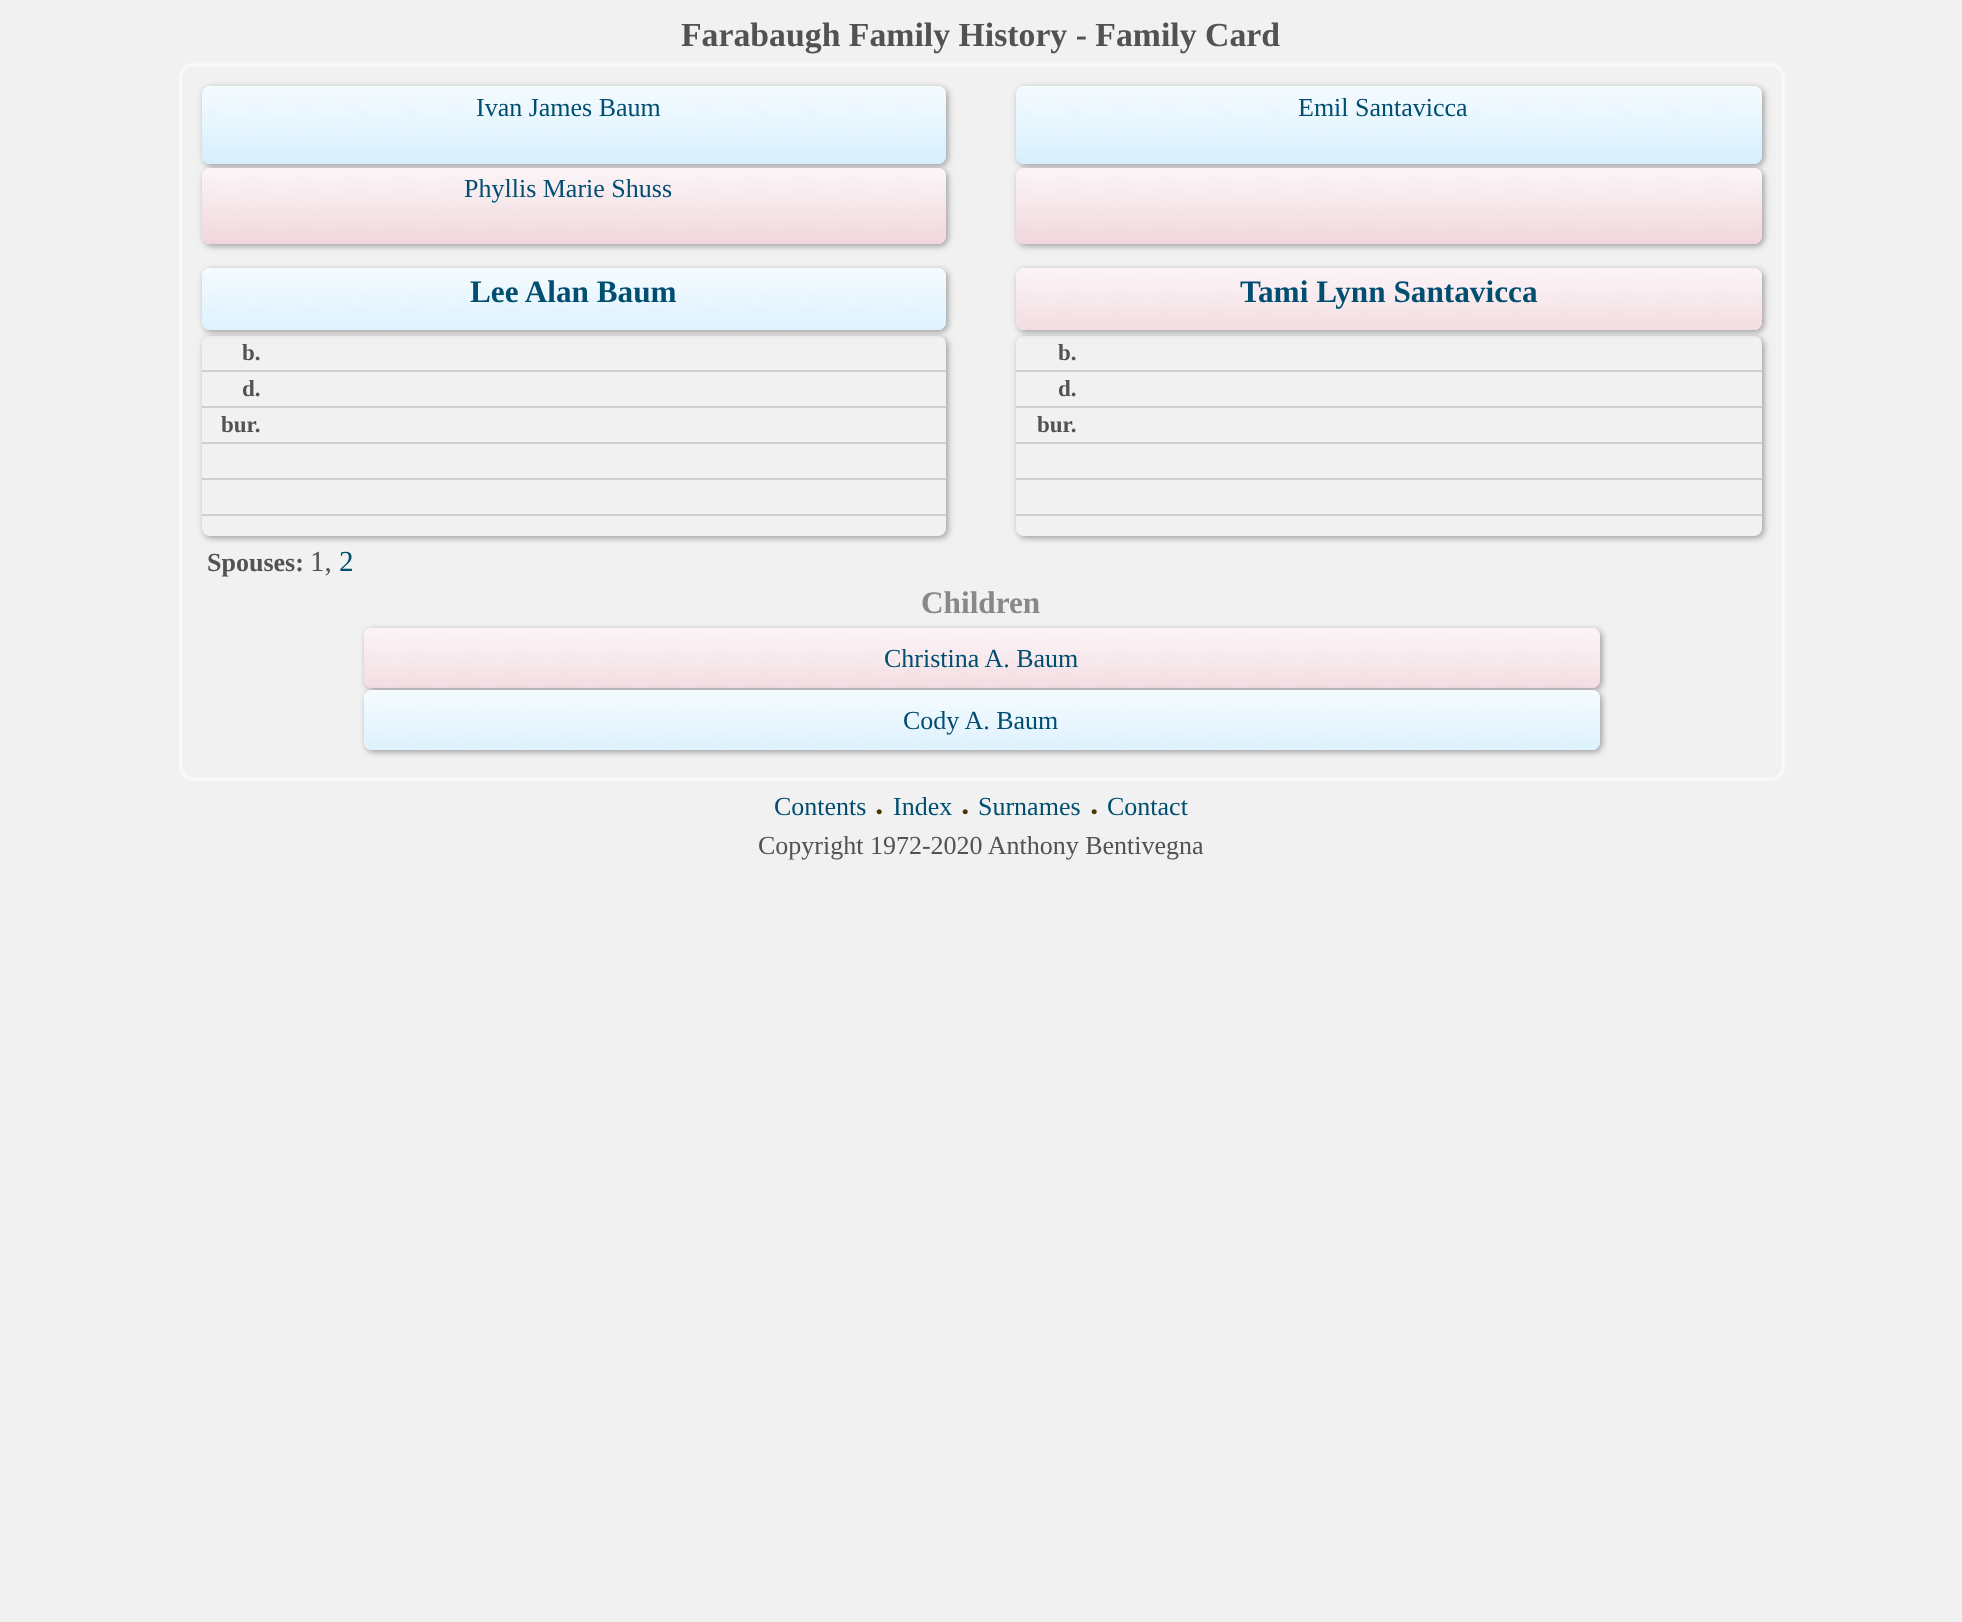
<?xml version="1.0" encoding="UTF-8"?>
<svg xmlns="http://www.w3.org/2000/svg" xmlns:xlink="http://www.w3.org/1999/xlink" width="1962" height="1622">
  <defs>
    <clipPath id="clip1"><path d="M 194 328 h 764 v 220 h -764 z m 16 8 h 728 c 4.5 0 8 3.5 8 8 v 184 c 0 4.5 -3.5 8 -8 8 h -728 c -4.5 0 -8 -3.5 -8 -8 v -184 c 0 -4.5 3.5 -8 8 -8 z" clip-rule="evenodd" /></clipPath>
    <clipPath id="clip2"><path d="M 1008 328 h 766 v 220 h -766 z m 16 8 h 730 c 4.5 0 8 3.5 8 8 v 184 c 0 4.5 -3.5 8 -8 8 h -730 c -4.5 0 -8 -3.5 -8 -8 v -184 c 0 -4.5 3.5 -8 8 -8 z" clip-rule="evenodd" /></clipPath>
  </defs>
  <rect width="100%" height="100%" fill="#f1f1f1" />
  <rect x="180" y="64" width="1604" height="716" rx="14" fill="#ffffff" filter="blur(2px)" />
  <rect x="182" y="66" width="1600" height="712" rx="12" fill="#f1f1f1" />
  <rect x="204" y="88" width="744" height="78" rx="8" fill="#9b9b9b" filter="blur(3px)" />
  <rect x="202" y="86" width="744" height="78" rx="8" fill="#f8fcfd" />
  <image x="202" y="86" width="744" height="78" xlink:href="image1.png" />
  <rect x="1018" y="88" width="746" height="78" rx="8" fill="#9b9b9b" filter="blur(3px)" />
  <rect x="1016" y="86" width="746" height="78" rx="8" fill="#f8fcfd" />
  <image x="1016" y="86" width="746" height="78" xlink:href="image2.png" />
  <rect x="204" y="170" width="744" height="76" rx="8" fill="#9b9b9b" filter="blur(3px)" />
  <rect x="202" y="168" width="744" height="76" rx="8" fill="#fdf8f8" />
  <image x="202" y="168" width="744" height="76" xlink:href="image3.png" />
  <rect x="1018" y="170" width="746" height="76" rx="8" fill="#9b9b9b" filter="blur(3px)" />
  <rect x="1016" y="168" width="746" height="76" rx="8" fill="#fdf8f8" />
  <image x="1016" y="168" width="746" height="76" xlink:href="image4.png" />
  <rect x="204" y="270" width="744" height="62" rx="8" fill="#9b9b9b" filter="blur(3px)" />
  <rect x="202" y="268" width="744" height="62" rx="8" fill="#f8fcfd" />
  <image x="202" y="268" width="744" height="62" xlink:href="image5.png" />
  <rect x="1018" y="270" width="746" height="62" rx="8" fill="#9b9b9b" filter="blur(3px)" />
  <rect x="1016" y="268" width="746" height="62" rx="8" fill="#fdf8f8" />
  <image x="1016" y="268" width="746" height="62" xlink:href="image6.png" />
  <g clip-path="url(#clip1)">
    <rect x="204" y="338" width="744" height="200" rx="8" fill="#9b9b9b" filter="blur(3px)" />
  </g>
  <rect x="202" y="370" width="744" height="2" fill="#d0d0d0" />
  <rect x="202" y="406" width="744" height="2" fill="#d0d0d0" />
  <rect x="202" y="442" width="744" height="2" fill="#d0d0d0" />
  <rect x="202" y="478" width="744" height="2" fill="#d0d0d0" />
  <rect x="202" y="514" width="744" height="2" fill="#d0d0d0" />
  <g clip-path="url(#clip2)">
    <rect x="1018" y="338" width="746" height="200" rx="8" fill="#9b9b9b" filter="blur(3px)" />
  </g>
  <rect x="1016" y="370" width="746" height="2" fill="#d0d0d0" />
  <rect x="1016" y="406" width="746" height="2" fill="#d0d0d0" />
  <rect x="1016" y="442" width="746" height="2" fill="#d0d0d0" />
  <rect x="1016" y="478" width="746" height="2" fill="#d0d0d0" />
  <rect x="1016" y="514" width="746" height="2" fill="#d0d0d0" />
  <rect x="366" y="630" width="1236" height="60" rx="8" fill="#9b9b9b" filter="blur(3px)" />
  <rect x="364" y="628" width="1236" height="60" rx="8" fill="#fdf8f8" />
  <image x="364" y="628" width="1236" height="60" xlink:href="image7.png" />
  <rect x="366" y="692" width="1236" height="60" rx="8" fill="#9b9b9b" filter="blur(3px)" />
  <rect x="364" y="690" width="1236" height="60" rx="8" fill="#f8fcfd" />
  <image x="364" y="690" width="1236" height="60" xlink:href="image8.png" />
  <text x="681" y="46" style="font-family: Liberation Serif; font-size: 33.75px; font-weight: bold; fill: #525252">Farabaugh Family History - Family Card</text>
  <text x="476" y="116" style="font-family: Liberation Serif; font-size: 26px; fill: #014e71">Ivan James Baum</text>
  <text x="1298" y="116" style="font-family: Liberation Serif; font-size: 26px; fill: #014e71">Emil Santavicca</text>
  <text x="464" y="197" style="font-family: Liberation Serif; font-size: 26px; fill: #014e71">Phyllis Marie Shuss</text>
  <text x="470" y="302" style="font-family: Liberation Serif; font-size: 31.25px; font-weight: bold; fill: #014e71">Lee Alan Baum</text>
  <text x="1240" y="302" style="font-family: Liberation Serif; font-size: 31.25px; font-weight: bold; fill: #014e71">Tami Lynn Santavicca</text>
  <text x="242" y="360" style="font-family: Liberation Serif; font-size: 23px; font-weight: bold; fill: #525252">b.</text>
  <text x="242" y="396" style="font-family: Liberation Serif; font-size: 23px; font-weight: bold; fill: #525252">d.</text>
  <text x="221" y="432" style="font-family: Liberation Serif; font-size: 23px; font-weight: bold; fill: #525252">bur.</text>
  <text x="1058" y="360" style="font-family: Liberation Serif; font-size: 23px; font-weight: bold; fill: #525252">b.</text>
  <text x="1058" y="396" style="font-family: Liberation Serif; font-size: 23px; font-weight: bold; fill: #525252">d.</text>
  <text x="1037" y="432" style="font-family: Liberation Serif; font-size: 23px; font-weight: bold; fill: #525252">bur.</text>
  <text x="207" y="571" style="font-family: Liberation Serif; font-size: 26px; font-weight: bold; fill: #525252">Spouses:</text>
  <text x="310" y="571" style="font-family: Liberation Serif; font-size: 29px; fill: #525252">1,</text>
  <text x="339" y="571" style="font-family: Liberation Serif; font-size: 29px; fill: #014e71">2</text>
  <text x="921" y="613" style="font-family: Liberation Serif; font-size: 31.25px; font-weight: bold; fill: #888888">Children</text>
  <text x="884" y="667" style="font-family: Liberation Serif; font-size: 26px; fill: #014e71">Christina A. Baum</text>
  <text x="903" y="729" style="font-family: Liberation Serif; font-size: 26px; fill: #014e71">Cody A. Baum</text>
  <text x="774" y="815" style="font-family: Liberation Serif; font-size: 26px; fill: #014e71">Contents</text>
  <text x="874" y="822" style="font-family: Liberation Serif; font-size: 31.25px; font-weight: bold; fill: #4d3300">·</text>
  <text x="893" y="815" style="font-family: Liberation Serif; font-size: 26px; fill: #014e71">Index</text>
  <text x="960" y="822" style="font-family: Liberation Serif; font-size: 31.25px; font-weight: bold; fill: #4d3300">·</text>
  <text x="978" y="815" style="font-family: Liberation Serif; font-size: 26px; fill: #014e71">Surnames</text>
  <text x="1089" y="822" style="font-family: Liberation Serif; font-size: 31.25px; font-weight: bold; fill: #4d3300">·</text>
  <text x="1107" y="815" style="font-family: Liberation Serif; font-size: 26px; fill: #014e71">Contact</text>
  <text x="758" y="854" style="font-family: Liberation Serif; font-size: 26px; fill: #525252">Copyright 1972-2020 Anthony Bentivegna</text>
</svg>
